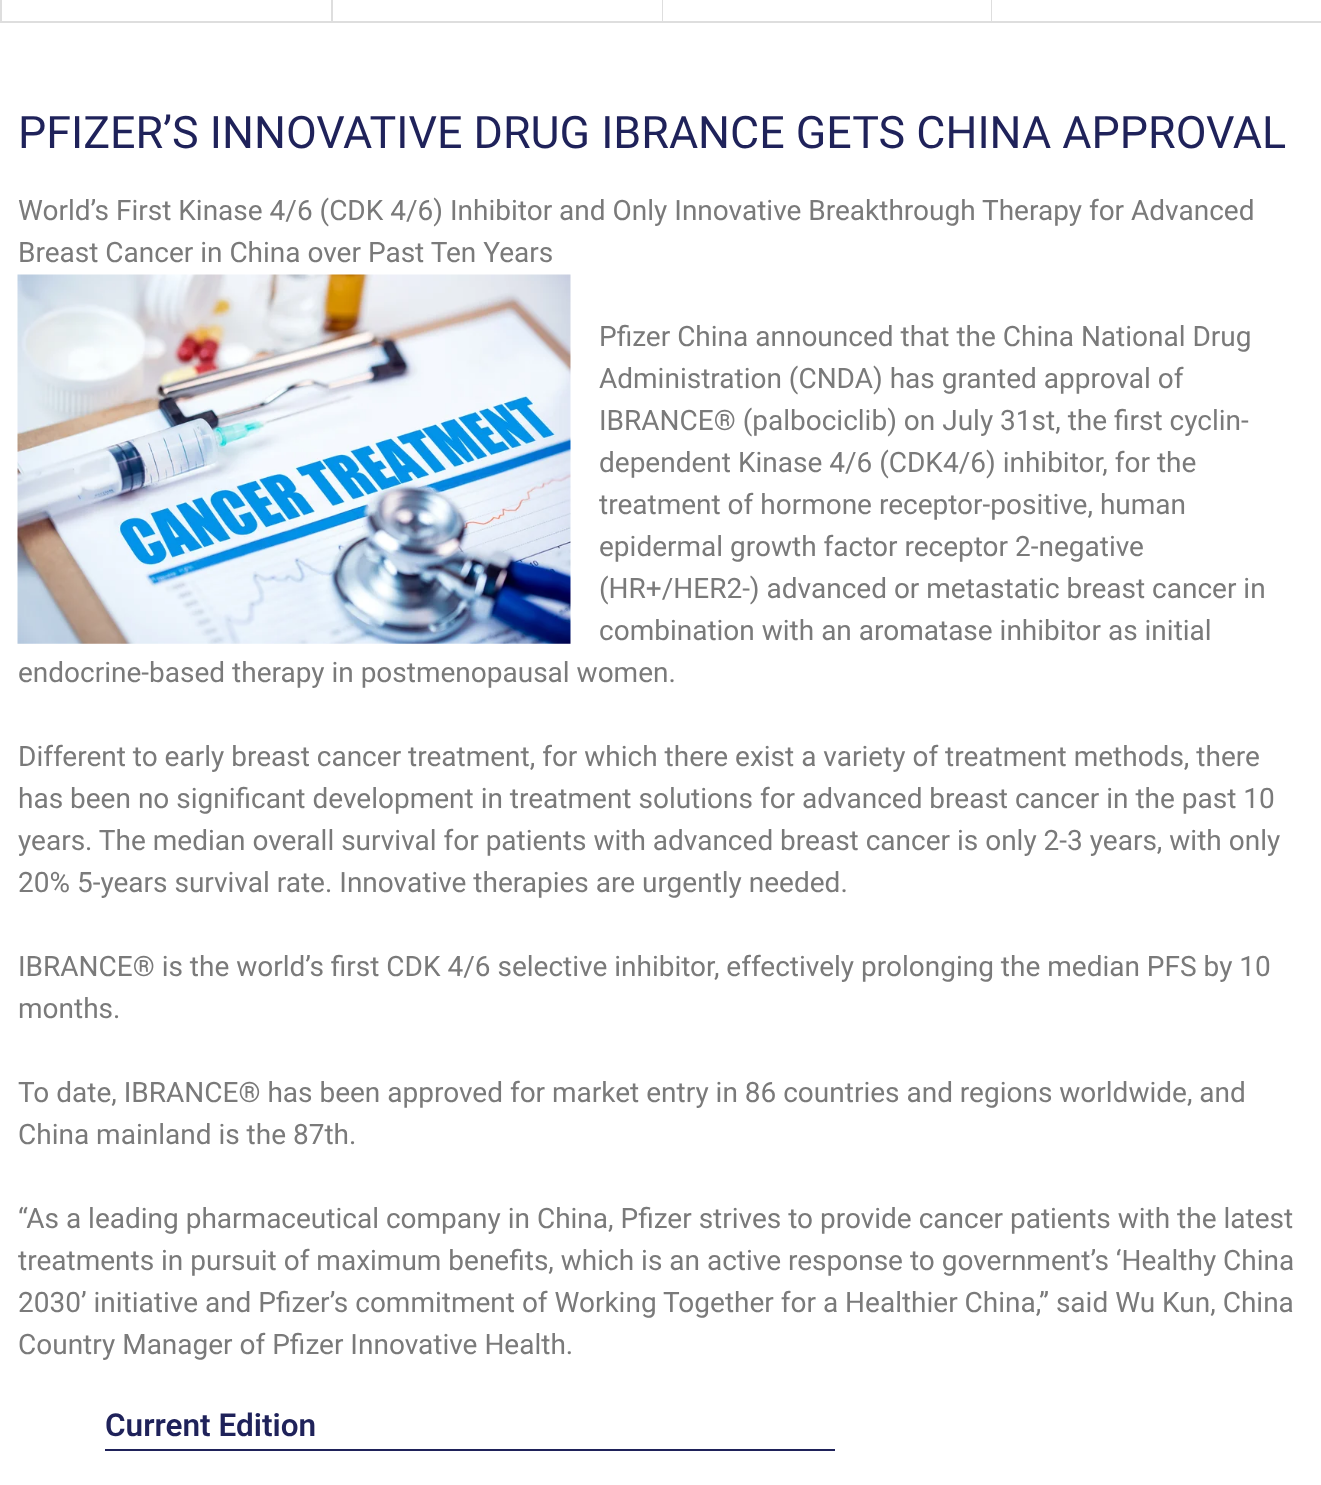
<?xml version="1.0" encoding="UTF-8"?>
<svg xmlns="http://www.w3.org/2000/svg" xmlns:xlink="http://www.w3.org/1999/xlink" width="1321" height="1485">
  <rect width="100%" height="100%" fill="#ffffff" />
  <rect y="21" width="1321" height="2" fill="#dedede" />
  <rect width="2" height="23" fill="#dedede" />
  <rect x="331" width="2" height="23" fill="#dedede" />
  <rect x="662" width="2" height="23" fill="#dedede" />
  <rect x="663" width="1" height="21" fill="#ffffff" />
  <rect x="991" width="2" height="23" fill="#dedede" />
  <rect x="992" width="1" height="21" fill="#ffffff" />
  <image x="17" y="274" width="554" height="370" xlink:href="image1.png" />
  <rect x="105" y="1449" width="730" height="2" fill="#1f225a" />
  <text x="18" y="148" style="font-family: Roboto; font-size: 44.8px; fill: #1f225a">PFIZER’S INNOVATIVE DRUG IBRANCE GETS CHINA APPROVAL</text>
  <text x="18" y="220" style="font-family: Roboto; font-size: 28px; fill: #7a7a7a">World’s First Kinase 4/6 (CDK 4/6) Inhibitor and Only Innovative Breakthrough Therapy for Advanced</text>
  <text x="18" y="262" style="font-family: Roboto; font-size: 28px; fill: #7a7a7a">Breast Cancer in China over Past Ten Years</text>
  <text x="599" y="346" style="font-family: Roboto; font-size: 28px; fill: #7a7a7a">Pfizer China announced that the China National Drug</text>
  <text x="599" y="388" style="font-family: Roboto; font-size: 28px; fill: #7a7a7a">Administration (CNDA) has granted approval of</text>
  <text x="599" y="430" style="font-family: Roboto; font-size: 28px; fill: #7a7a7a">IBRANCE® (palbociclib) on July 31st, the first cyclin-</text>
  <text x="599" y="472" style="font-family: Roboto; font-size: 28px; fill: #7a7a7a">dependent Kinase 4/6 (CDK4/6) inhibitor, for the</text>
  <text x="599" y="514" style="font-family: Roboto; font-size: 28px; fill: #7a7a7a">treatment of hormone receptor-positive, human</text>
  <text x="599" y="556" style="font-family: Roboto; font-size: 28px; fill: #7a7a7a">epidermal growth factor receptor 2-negative</text>
  <text x="599" y="598" style="font-family: Roboto; font-size: 28px; fill: #7a7a7a">(HR+/HER2-) advanced or metastatic breast cancer in</text>
  <text x="599" y="640" style="font-family: Roboto; font-size: 28px; fill: #7a7a7a">combination with an aromatase inhibitor as initial</text>
  <text x="18" y="682" style="font-family: Roboto; font-size: 28px; fill: #7a7a7a">endocrine-based therapy in postmenopausal women.</text>
  <text x="18" y="766" style="font-family: Roboto; font-size: 28px; fill: #7a7a7a">Different to early breast cancer treatment, for which there exist a variety of treatment methods, there</text>
  <text x="18" y="808" style="font-family: Roboto; font-size: 28px; fill: #7a7a7a">has been no significant development in treatment solutions for advanced breast cancer in the past 10</text>
  <text x="18" y="850" style="font-family: Roboto; font-size: 28px; fill: #7a7a7a">years. The median overall survival for patients with advanced breast cancer is only 2-3 years, with only</text>
  <text x="18" y="892" style="font-family: Roboto; font-size: 28px; fill: #7a7a7a">20% 5-years survival rate. Innovative therapies are urgently needed.</text>
  <text x="18" y="976" style="font-family: Roboto; font-size: 28px; fill: #7a7a7a">IBRANCE® is the world’s first CDK 4/6 selective inhibitor, effectively prolonging the median PFS by 10</text>
  <text x="18" y="1018" style="font-family: Roboto; font-size: 28px; fill: #7a7a7a">months.</text>
  <text x="18" y="1102" style="font-family: Roboto; font-size: 28px; fill: #7a7a7a">To date, IBRANCE® has been approved for market entry in 86 countries and regions worldwide, and</text>
  <text x="18" y="1144" style="font-family: Roboto; font-size: 28px; fill: #7a7a7a">China mainland is the 87th.</text>
  <text x="18" y="1228" style="font-family: Roboto; font-size: 28px; fill: #7a7a7a">“As a leading pharmaceutical company in China, Pfizer strives to provide cancer patients with the latest</text>
  <text x="18" y="1270" style="font-family: Roboto; font-size: 28px; fill: #7a7a7a">treatments in pursuit of maximum benefits, which is an active response to government’s ‘Healthy China</text>
  <text x="18" y="1312" style="font-family: Roboto; font-size: 28px; fill: #7a7a7a">2030’ initiative and Pfizer’s commitment of Working Together for a Healthier China,” said Wu Kun, China</text>
  <text x="18" y="1354" style="font-family: Roboto; font-size: 28px; fill: #7a7a7a">Country Manager of Pfizer Innovative Health.</text>
  <text x="105" y="1436" style="font-family: Roboto; font-size: 31.5px; font-weight: 600; fill: #1f225a">Current Edition</text>
</svg>
